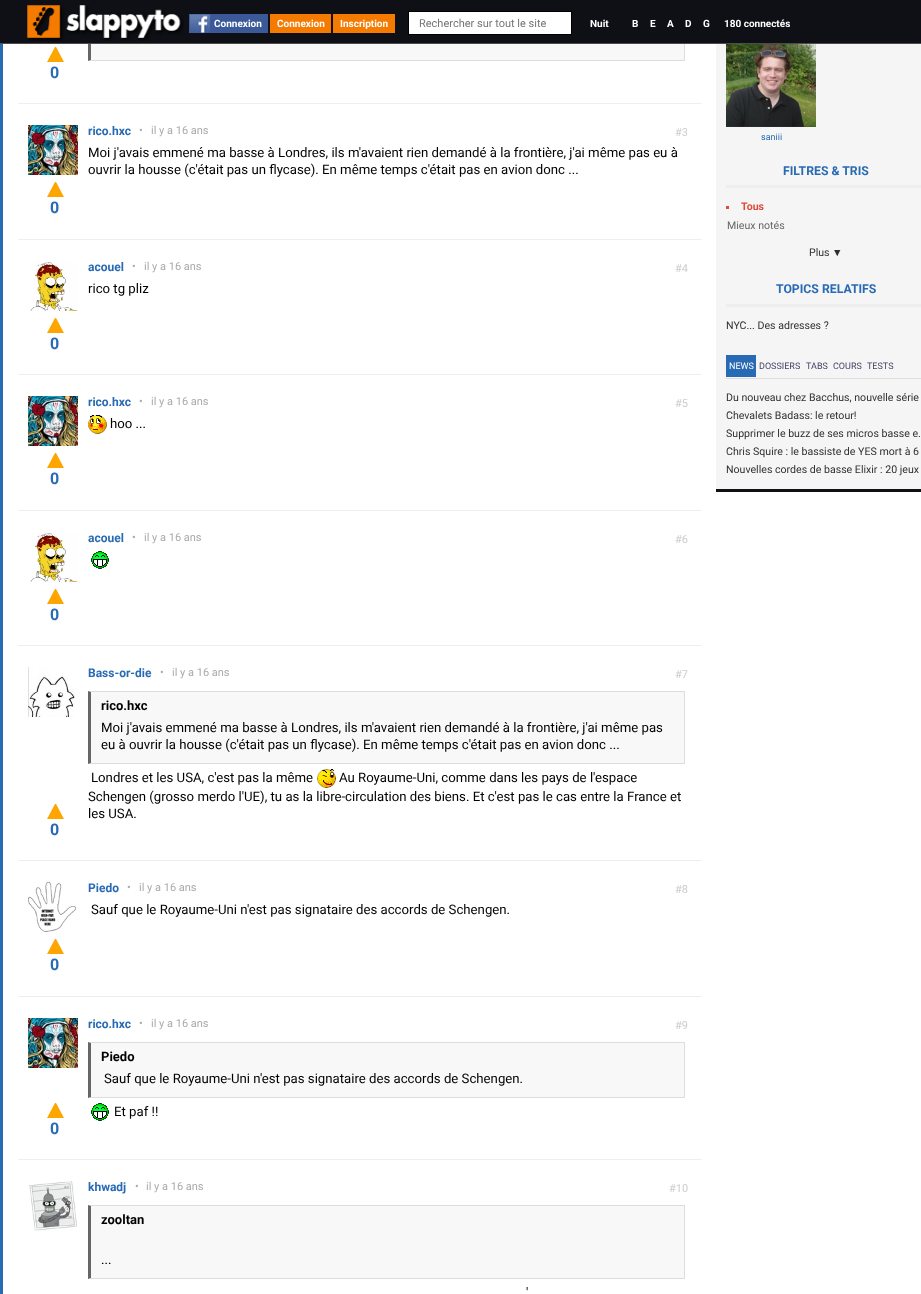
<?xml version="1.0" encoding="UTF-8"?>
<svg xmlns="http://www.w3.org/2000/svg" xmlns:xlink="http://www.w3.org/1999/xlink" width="921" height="1294">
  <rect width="100%" height="100%" fill="#286ab3" />
  <rect x="3" y="44" width="918" height="1250" fill="#ffffff" />
  <rect x="684" y="44" width="1" height="17" fill="#dddddd" />
  <path d="M 685 61 h -597 l 3 -1 h 593 z" fill="#dddddd" />
  <path d="M 88 61 v -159 l 3 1 v 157 z" fill="#666666" />
  <rect width="921" height="43" fill="#0e1015" />
  <rect y="43" width="921" height="1" fill="#4c4c4c" />
  <image x="27" y="5" width="157" height="36" xlink:href="image1.png" />
  <rect x="211" y="14" width="57" height="19" fill="#3b5998" />
  <image x="189" y="14" width="22" height="19" xlink:href="image2.png" />
  <rect x="270" y="14" width="61" height="19" fill="#f47a00" />
  <rect x="333" y="14" width="62" height="19" fill="#f47a00" />
  <rect x="408.5" y="11.5" width="163" height="23" fill="#ffffff" stroke="#000000" />
  <rect x="91" y="44" width="593" height="16" fill="#f8f8f8" />
  <path d="M 64 62 h -17 l 8 -15 h 1 z" fill="#ffa500" />
  <rect x="18" y="103" width="683" height="1" fill="#eeeeee" />
  <image x="28" y="125" width="50" height="50" xlink:href="image3.png" />
  <path d="M 64 197 h -17 l 8 -15 h 1 z" fill="#ffa500" />
  <rect x="18" y="239" width="683" height="1" fill="#eeeeee" />
  <image x="30" y="262" width="48" height="49" xlink:href="image4.png" />
  <path d="M 64 333 h -17 l 8 -15 h 1 z" fill="#ffa500" />
  <rect x="18" y="374" width="683" height="1" fill="#eeeeee" />
  <image x="28" y="396" width="50" height="50" xlink:href="image3.png" />
  <image x="88" y="415" width="19" height="19" xlink:href="image5.png" />
  <path d="M 64 468 h -17 l 8 -15 h 1 z" fill="#ffa500" />
  <rect x="18" y="510" width="683" height="1" fill="#eeeeee" />
  <image x="30" y="533" width="48" height="49" xlink:href="image4.png" />
  <image x="91" y="551" width="18" height="18" xlink:href="image6.png" />
  <path d="M 64 604 h -17 l 8 -15 h 1 z" fill="#ffa500" />
  <rect x="18" y="645" width="683" height="1" fill="#eeeeee" />
  <image x="28" y="667" width="47" height="50" xlink:href="image7.png" />
  <rect x="91" y="692" width="593" height="71" fill="#f8f8f8" />
  <path d="M 88 691 h 597 l -1 1 h -593 z" fill="#dddddd" />
  <rect x="684" y="691" width="1" height="73" fill="#dddddd" />
  <path d="M 685 764 h -597 l 3 -1 h 593 z" fill="#dddddd" />
  <path d="M 88 764 v -73 l 3 1 v 71 z" fill="#666666" />
  <image x="317" y="769" width="19" height="19" xlink:href="image8.png" />
  <path d="M 64 819 h -17 l 8 -15 h 1 z" fill="#ffa500" />
  <rect x="18" y="860" width="683" height="1" fill="#eeeeee" />
  <image x="28" y="882" width="49" height="50" xlink:href="image9.png" />
  <path d="M 64 954 h -17 l 8 -15 h 1 z" fill="#ffa500" />
  <rect x="18" y="996" width="683" height="1" fill="#eeeeee" />
  <image x="28" y="1018" width="50" height="50" xlink:href="image3.png" />
  <rect x="91" y="1043" width="593" height="54" fill="#f8f8f8" />
  <path d="M 88 1042 h 597 l -1 1 h -593 z" fill="#dddddd" />
  <rect x="684" y="1042" width="1" height="56" fill="#dddddd" />
  <path d="M 685 1098 h -597 l 3 -1 h 593 z" fill="#dddddd" />
  <path d="M 88 1098 v -56 l 3 1 v 54 z" fill="#666666" />
  <image x="91" y="1103" width="18" height="18" xlink:href="image6.png" />
  <path d="M 64 1118 h -17 l 8 -15 h 1 z" fill="#ffa500" />
  <rect x="18" y="1159" width="683" height="1" fill="#eeeeee" />
  <image x="29" y="1181" width="48" height="50" xlink:href="image10.png" />
  <rect x="91" y="1206" width="593" height="72" fill="#f8f8f8" />
  <path d="M 88 1205 h 597 l -1 1 h -593 z" fill="#dddddd" />
  <rect x="684" y="1205" width="1" height="74" fill="#dddddd" />
  <path d="M 685 1279 h -597 l 3 -1 h 593 z" fill="#dddddd" />
  <path d="M 88 1279 v -74 l 3 1 v 72 z" fill="#666666" />
  <rect x="716" y="44" width="205" height="445" fill="#f5f5f5" />
  <rect x="716" y="489" width="205" height="3" fill="#0e1015" />
  <image x="726" y="44" width="90" height="83" xlink:href="image11.png" />
  <rect x="726" y="185" width="195" height="3" fill="#eeeeee" />
  <rect x="726" y="206" width="3" height="3" fill="#dd4b39" />
  <rect x="726" y="304" width="195" height="3" fill="#eeeeee" />
  <rect x="726" y="378" width="195" height="1" fill="#dedede" />
  <rect x="726" y="355" width="30" height="22" fill="#286ab3" />
  <text x="214" y="27" style="font-family: Roboto; font-size: 10px; font-weight: bold; fill: #ffffff">Connexion</text>
  <text x="277" y="27" style="font-family: Roboto; font-size: 10px; font-weight: bold; fill: #ffffff">Connexion</text>
  <text x="340" y="27" style="font-family: Roboto; font-size: 10px; font-weight: bold; fill: #ffffff">Inscription</text>
  <text x="419" y="27" style="font-family: Roboto; font-size: 11px; fill: #757575">Rechercher sur tout le site</text>
  <text x="590" y="27" style="font-family: Roboto; font-size: 10px; font-weight: bold; fill: #ffffff">Nuit</text>
  <text x="632" y="27" style="font-family: Roboto; font-size: 10px; font-weight: bold; fill: #ffffff">B</text>
  <text x="650" y="27" style="font-family: Roboto; font-size: 10px; font-weight: bold; fill: #ffffff">E</text>
  <text x="667" y="27" style="font-family: Roboto; font-size: 10px; font-weight: bold; fill: #ffffff">A</text>
  <text x="685" y="27" style="font-family: Roboto; font-size: 10px; font-weight: bold; fill: #ffffff">D</text>
  <text x="703" y="27" style="font-family: Roboto; font-size: 10px; font-weight: bold; fill: #ffffff">G</text>
  <text x="724" y="27" style="font-family: Roboto; font-size: 10px; font-weight: bold; fill: #ffffff">180 connectés</text>
  <text x="50" y="78" style="font-family: Roboto; font-size: 16px; font-weight: bold; fill: #286ab3">0</text>
  <text x="88" y="135" style="font-family: Roboto; font-size: 12px; font-weight: bold; fill: #286ab3">rico.hxc</text>
  <text x="139" y="134" style="font-family: Roboto; font-size: 11px; fill: #aaaaaa">•</text>
  <text x="151" y="134" style="font-family: Roboto; font-size: 11px; fill: #aaaaaa">il y a 16 ans</text>
  <text x="675" y="136" style="font-family: Roboto; font-size: 11px; fill: #cccccc">#3</text>
  <text x="88" y="157" style="font-family: Roboto; font-size: 13.2px; fill: #000000">Moi j'avais emmené ma basse à Londres, ils m'avaient rien demandé à la frontière, j'ai même pas eu à</text>
  <text x="88" y="174" style="font-family: Roboto; font-size: 13.2px; fill: #000000">ouvrir la housse (c'était pas un flycase). En même temps c'était pas en avion donc ...</text>
  <text x="50" y="213" style="font-family: Roboto; font-size: 16px; font-weight: bold; fill: #286ab3">0</text>
  <text x="88" y="271" style="font-family: Roboto; font-size: 12px; font-weight: bold; fill: #286ab3">acouel</text>
  <text x="132" y="270" style="font-family: Roboto; font-size: 11px; fill: #aaaaaa">•</text>
  <text x="144" y="270" style="font-family: Roboto; font-size: 11px; fill: #aaaaaa">il y a 16 ans</text>
  <text x="675" y="272" style="font-family: Roboto; font-size: 11px; fill: #cccccc">#4</text>
  <text x="88" y="293" style="font-family: Roboto; font-size: 13.2px; fill: #000000">rico tg pliz</text>
  <text x="50" y="349" style="font-family: Roboto; font-size: 16px; font-weight: bold; fill: #286ab3">0</text>
  <text x="88" y="406" style="font-family: Roboto; font-size: 12px; font-weight: bold; fill: #286ab3">rico.hxc</text>
  <text x="139" y="405" style="font-family: Roboto; font-size: 11px; fill: #aaaaaa">•</text>
  <text x="151" y="405" style="font-family: Roboto; font-size: 11px; fill: #aaaaaa">il y a 16 ans</text>
  <text x="675" y="407" style="font-family: Roboto; font-size: 11px; fill: #cccccc">#5</text>
  <text x="110" y="428" style="font-family: Roboto; font-size: 13.2px; fill: #000000">hoo ...</text>
  <text x="50" y="484" style="font-family: Roboto; font-size: 16px; font-weight: bold; fill: #286ab3">0</text>
  <text x="88" y="542" style="font-family: Roboto; font-size: 12px; font-weight: bold; fill: #286ab3">acouel</text>
  <text x="132" y="541" style="font-family: Roboto; font-size: 11px; fill: #aaaaaa">•</text>
  <text x="144" y="541" style="font-family: Roboto; font-size: 11px; fill: #aaaaaa">il y a 16 ans</text>
  <text x="675" y="543" style="font-family: Roboto; font-size: 11px; fill: #cccccc">#6</text>
  <text x="50" y="620" style="font-family: Roboto; font-size: 16px; font-weight: bold; fill: #286ab3">0</text>
  <text x="88" y="677" style="font-family: Roboto; font-size: 12px; font-weight: bold; fill: #286ab3">Bass-or-die</text>
  <text x="160" y="676" style="font-family: Roboto; font-size: 11px; fill: #aaaaaa">•</text>
  <text x="172" y="676" style="font-family: Roboto; font-size: 11px; fill: #aaaaaa">il y a 16 ans</text>
  <text x="675" y="678" style="font-family: Roboto; font-size: 11px; fill: #cccccc">#7</text>
  <text x="101" y="710" style="font-family: Roboto; font-size: 13px; font-weight: bold; fill: #000000">rico.hxc</text>
  <text x="101" y="732" style="font-family: Roboto; font-size: 13.2px; fill: #000000">Moi j'avais emmené ma basse à Londres, ils m'avaient rien demandé à la frontière, j'ai même pas</text>
  <text x="101" y="749" style="font-family: Roboto; font-size: 13.2px; fill: #000000">eu à ouvrir la housse (c'était pas un flycase). En même temps c'était pas en avion donc ...</text>
  <text x="91" y="782" style="font-family: Roboto; font-size: 13.2px; fill: #000000">Londres et les USA, c'est pas la même</text>
  <text x="339" y="782" style="font-family: Roboto; font-size: 13.2px; fill: #000000">Au Royaume-Uni, comme dans les pays de l'espace</text>
  <text x="88" y="801" style="font-family: Roboto; font-size: 13.2px; fill: #000000">Schengen (grosso merdo l'UE), tu as la libre-circulation des biens. Et c'est pas le cas entre la France et</text>
  <text x="88" y="818" style="font-family: Roboto; font-size: 13.2px; fill: #000000">les USA.</text>
  <text x="50" y="835" style="font-family: Roboto; font-size: 16px; font-weight: bold; fill: #286ab3">0</text>
  <text x="88" y="892" style="font-family: Roboto; font-size: 12px; font-weight: bold; fill: #286ab3">Piedo</text>
  <text x="127" y="891" style="font-family: Roboto; font-size: 11px; fill: #aaaaaa">•</text>
  <text x="139" y="891" style="font-family: Roboto; font-size: 11px; fill: #aaaaaa">il y a 16 ans</text>
  <text x="675" y="893" style="font-family: Roboto; font-size: 11px; fill: #cccccc">#8</text>
  <text x="91" y="914" style="font-family: Roboto; font-size: 13.2px; fill: #000000">Sauf que le Royaume-Uni n'est pas signataire des accords de Schengen.</text>
  <text x="50" y="970" style="font-family: Roboto; font-size: 16px; font-weight: bold; fill: #286ab3">0</text>
  <text x="88" y="1028" style="font-family: Roboto; font-size: 12px; font-weight: bold; fill: #286ab3">rico.hxc</text>
  <text x="139" y="1027" style="font-family: Roboto; font-size: 11px; fill: #aaaaaa">•</text>
  <text x="151" y="1027" style="font-family: Roboto; font-size: 11px; fill: #aaaaaa">il y a 16 ans</text>
  <text x="675" y="1029" style="font-family: Roboto; font-size: 11px; fill: #cccccc">#9</text>
  <text x="101" y="1061" style="font-family: Roboto; font-size: 13px; font-weight: bold; fill: #000000">Piedo</text>
  <text x="104" y="1083" style="font-family: Roboto; font-size: 13.2px; fill: #000000">Sauf que le Royaume-Uni n'est pas signataire des accords de Schengen.</text>
  <text x="114" y="1116" style="font-family: Roboto; font-size: 13.2px; fill: #000000">Et paf !!</text>
  <text x="50" y="1134" style="font-family: Roboto; font-size: 16px; font-weight: bold; fill: #286ab3">0</text>
  <text x="88" y="1191" style="font-family: Roboto; font-size: 12px; font-weight: bold; fill: #286ab3">khwadj</text>
  <text x="135" y="1190" style="font-family: Roboto; font-size: 11px; fill: #aaaaaa">•</text>
  <text x="146" y="1190" style="font-family: Roboto; font-size: 11px; fill: #aaaaaa">il y a 16 ans</text>
  <text x="669" y="1192" style="font-family: Roboto; font-size: 11px; fill: #cccccc">#10</text>
  <text x="101" y="1224" style="font-family: Roboto; font-size: 13px; font-weight: bold; fill: #000000">zooltan</text>
  <text x="101" y="1264" style="font-family: Roboto; font-size: 13.2px; fill: #000000">...</text>
  <text x="526" y="1297" style="font-family: Roboto; font-size: 13.2px; fill: #000000">'</text>
  <text x="761" y="140" style="font-family: Roboto; font-size: 9px; fill: #286ab3">saniii</text>
  <text x="783" y="175" style="font-family: Roboto; font-size: 12.25px; font-weight: bold; fill: #286ab3">FILTRES &amp; TRIS</text>
  <text x="741" y="210" style="font-family: Roboto; font-size: 10.6px; font-weight: bold; fill: #dd4b39">Tous</text>
  <text x="727" y="229" style="font-family: Roboto; font-size: 10.6px; fill: #666666">Mieux notés</text>
  <text x="809" y="256" style="font-family: Roboto; font-size: 10.6px; fill: #303030">Plus</text>
  <text x="832" y="256" style="font-family: Liberation Sans; font-size: 10.6px; fill: #303030">▼</text>
  <text x="776" y="293" style="font-family: Roboto; font-size: 12.25px; font-weight: bold; fill: #286ab3">TOPICS RELATIFS</text>
  <text x="726" y="329" style="font-family: Roboto; font-size: 10.6px; fill: #303030">NYC... Des adresses ?</text>
  <text x="729" y="369" style="font-family: Roboto; font-size: 9px; fill: #ffffff">NEWS</text>
  <text x="759" y="369" style="font-family: Roboto; font-size: 9px; fill: #444466">DOSSIERS</text>
  <text x="806" y="369" style="font-family: Roboto; font-size: 9px; fill: #444466">TABS</text>
  <text x="833" y="369" style="font-family: Roboto; font-size: 9px; fill: #444466">COURS</text>
  <text x="867" y="369" style="font-family: Roboto; font-size: 9px; fill: #444466">TESTS</text>
  <text x="726" y="401" style="font-family: Roboto; font-size: 10.6px; fill: #303030">Du nouveau chez Bacchus, nouvelle série</text>
  <text x="726" y="419" style="font-family: Roboto; font-size: 10.6px; fill: #303030">Chevalets Badass: le retour!</text>
  <text x="726" y="437" style="font-family: Roboto; font-size: 10.6px; fill: #303030">Supprimer le buzz de ses micros basse e…</text>
  <text x="726" y="455" style="font-family: Roboto; font-size: 10.6px; fill: #303030">Chris Squire : le bassiste de YES mort à 6</text>
  <text x="726" y="473" style="font-family: Roboto; font-size: 10.6px; fill: #303030">Nouvelles cordes de basse Elixir : 20 jeux</text>
</svg>
